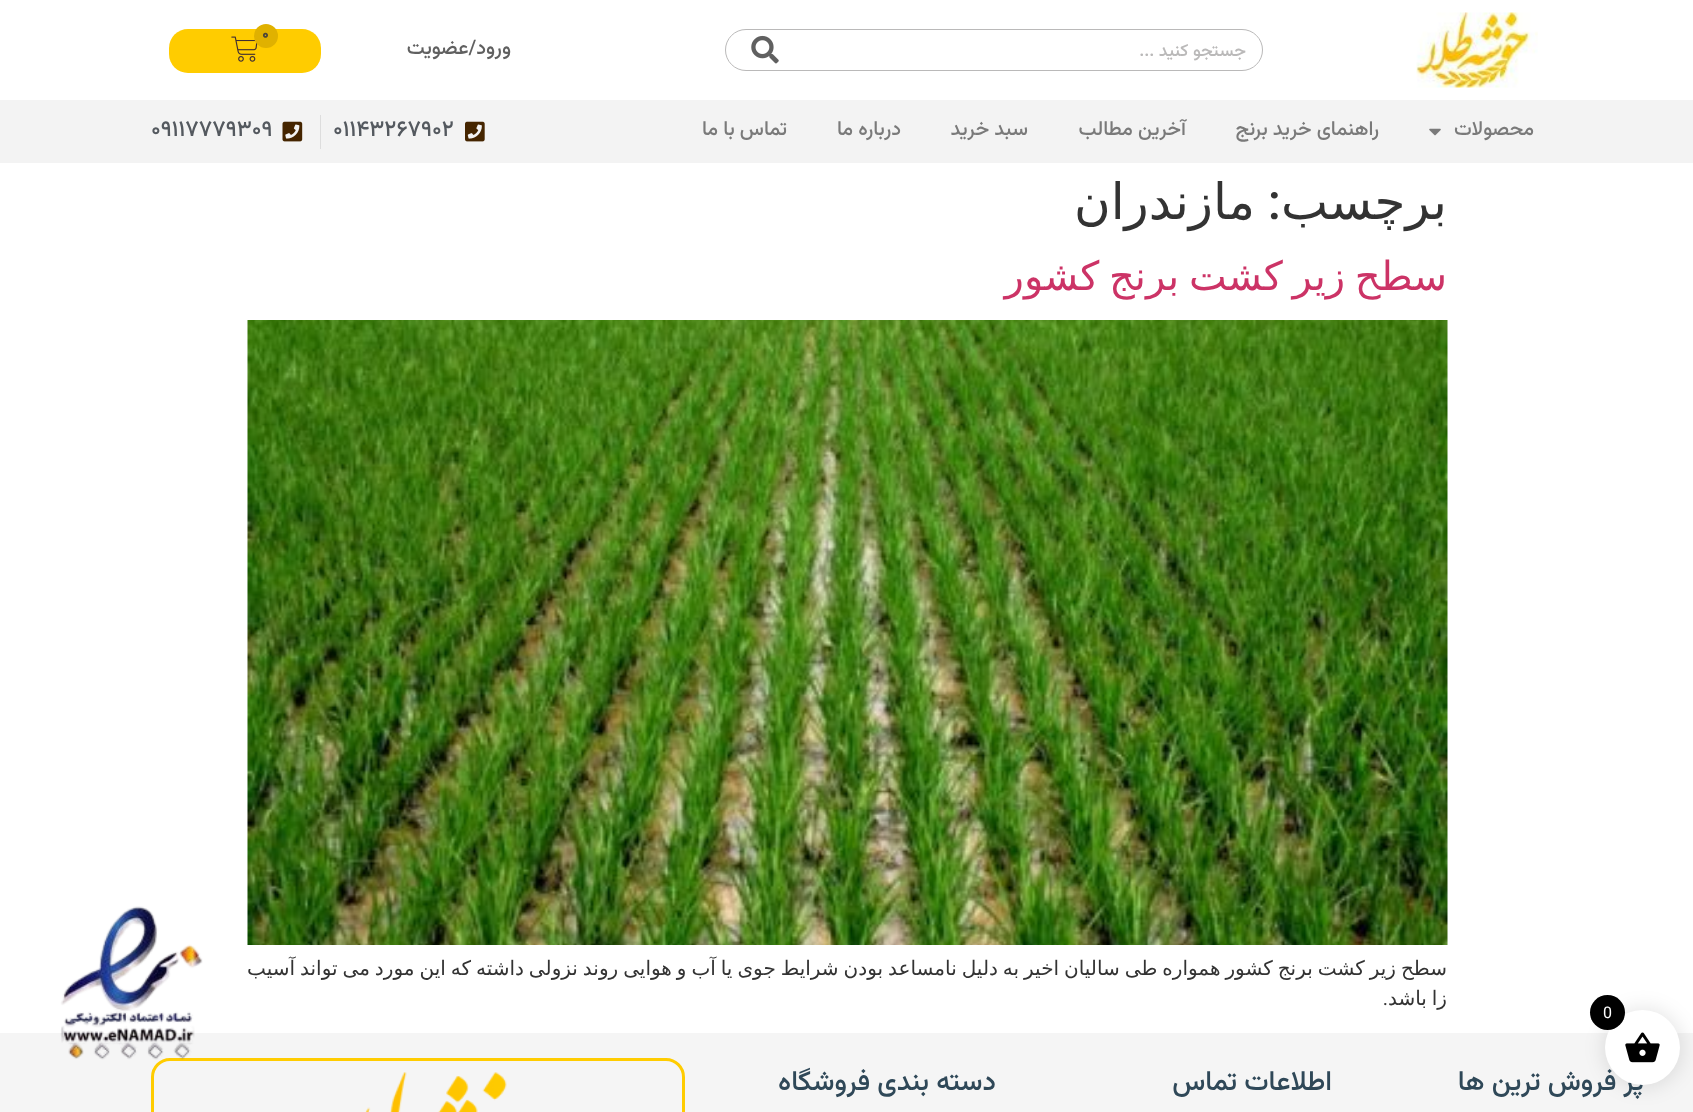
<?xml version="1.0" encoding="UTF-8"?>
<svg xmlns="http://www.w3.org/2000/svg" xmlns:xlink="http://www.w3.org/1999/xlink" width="1693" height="1112">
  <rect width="100%" height="100%" fill="#ffffff" />
  <image x="1416" y="12" width="122" height="76" xlink:href="image1.png" />
  <rect x="169" y="29" width="152" height="44" rx="19" fill="#ffcc00" />
  <image x="231" y="36" width="27" height="26" xlink:href="image2.png" />
  <circle cx="266" cy="36" r="12" fill="#e0b100" />
  <rect x="725.5" y="29.5" width="537" height="41" rx="20.5" fill="none" stroke="#bab9b9" />
  <image x="751" y="35" width="28" height="29" xlink:href="image3.png" />
  <rect y="100" width="1693" height="63" fill="#f3f3f3" />
  <image x="1429" y="128" width="12" height="8" xlink:href="image4.png" />
  <image x="465" y="121" width="20" height="21" xlink:href="image5.png" />
  <rect x="320" y="115" width="1" height="34" fill="#dddddd" />
  <image x="282" y="121" width="21" height="21" xlink:href="image6.png" />
  <image x="247" y="320" width="1201" height="625" xlink:href="image7.png" />
  <rect y="1033" width="1693" height="79" fill="#f5f5f5" />
  <rect x="1603" y="1008" width="80" height="80" rx="40" fill="#000000" fill-opacity="0.1" filter="blur(9.5px)" />
  <rect x="152.5" y="1059.5" width="531" height="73" rx="17.5" fill="none" stroke="#ffcc00" stroke-width="3" />
  <image x="60" y="906" width="143" height="154" xlink:href="image9.png" />
  <image x="365" y="1072" width="142" height="40" xlink:href="image10.png" />
  <text x="262" y="39" style="font-family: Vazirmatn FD; font-size: 15px; font-weight: bold; fill: #4d4637">0</text>
  <text x="1246" y="56" style="font-family: Vazirmatn FD; font-size: 17.5px; font-weight: 500; direction: rtl; fill: #bab9b9">جستجو کنید ...</text>
  <text x="511" y="54" style="font-family: Vazirmatn FD; font-size: 20px; font-weight: 500; direction: rtl; fill: #606060">ورود/عضویت</text>
  <text x="1534" y="135" style="font-family: Vazirmatn FD; font-size: 20px; font-weight: 500; direction: rtl; fill: #7a7a7a">محصولات</text>
  <text x="1379" y="135" style="font-family: Vazirmatn FD; font-size: 20px; font-weight: 500; direction: rtl; fill: #7a7a7a">راهنمای خرید برنج</text>
  <text x="1186" y="135" style="font-family: Vazirmatn FD; font-size: 20px; font-weight: 500; direction: rtl; fill: #7a7a7a">آخرین مطالب</text>
  <text x="1028" y="135" style="font-family: Vazirmatn FD; font-size: 20px; font-weight: 500; direction: rtl; fill: #7a7a7a">سبد خرید</text>
  <text x="901" y="135" style="font-family: Vazirmatn FD; font-size: 20px; font-weight: 500; direction: rtl; fill: #7a7a7a">درباره ما</text>
  <text x="787" y="135" style="font-family: Vazirmatn FD; font-size: 20px; font-weight: 500; direction: rtl; fill: #7a7a7a">تماس با ما</text>
  <text x="333" y="136" style="font-family: Vazirmatn FD; font-size: 22.5px; font-weight: 500; fill: #54595f">۰۱۱۴۳۲۶۷۹۰۲</text>
  <text x="151" y="136" style="font-family: Vazirmatn FD; font-size: 22.5px; font-weight: 500; fill: #54595f">۰۹۱۱۷۷۷۹۳۰۹</text>
  <text x="1447" y="219" style="font-family: DejaVu Sans; font-size: 50px; direction: rtl; fill: #333333">برچسب</text>
  <text x="1281" y="219" style="font-family: Roboto; font-size: 50px; font-weight: 500; direction: rtl; fill: #333333">:</text>
  <text x="1255" y="219" style="font-family: DejaVu Sans; font-size: 50px; direction: rtl; fill: #333333">مازندران</text>
  <text x="1447" y="290" word-spacing="-3" style="font-family: DejaVu Sans; font-size: 40px; direction: rtl; fill: #cc3366">سطح زیر کشت برنج کشور</text>
  <text x="1447" y="975" word-spacing="-1.4" style="font-family: DejaVu Sans; font-size: 20px; direction: rtl; fill: #333333">سطح زیر کشت برنج کشور همواره طی سالیان اخیر به دلیل نامساعد بودن شرایط جوی یا آب و هوایی روند نزولی داشته که این مورد می تواند آسیب</text>
  <text x="1447" y="1005" word-spacing="-1.4" style="font-family: DejaVu Sans; font-size: 20px; direction: rtl; fill: #333333">زا باشد</text>
  <text x="1388" y="1005" style="font-family: Roboto; font-size: 20px; direction: rtl; fill: #333333">.</text>
  <text x="1644" y="1090" style="font-family: Vazirmatn FD; font-size: 27.5px; font-weight: 500; direction: rtl; fill: #2f4858">پر فروش ترین ها</text>
  <circle cx="1642.5" cy="1047.5" r="37.5" fill="#ffffff" />
  <circle cx="1607.5" cy="1012.5" r="17.5" fill="#000000" />
  <text x="1603" y="1018" style="font-family: Roboto; font-size: 16px; fill: #ffffff">0</text>
  <image x="1625" y="1032" width="35" height="31" xlink:href="image8.png" />
  <text x="1332" y="1090" style="font-family: Vazirmatn FD; font-size: 27.5px; font-weight: 500; direction: rtl; fill: #2f4858">اطلاعات تماس</text>
  <text x="996" y="1090" style="font-family: Vazirmatn FD; font-size: 27.5px; font-weight: 500; direction: rtl; fill: #2f4858">دسته بندی فروشگاه</text>
</svg>
